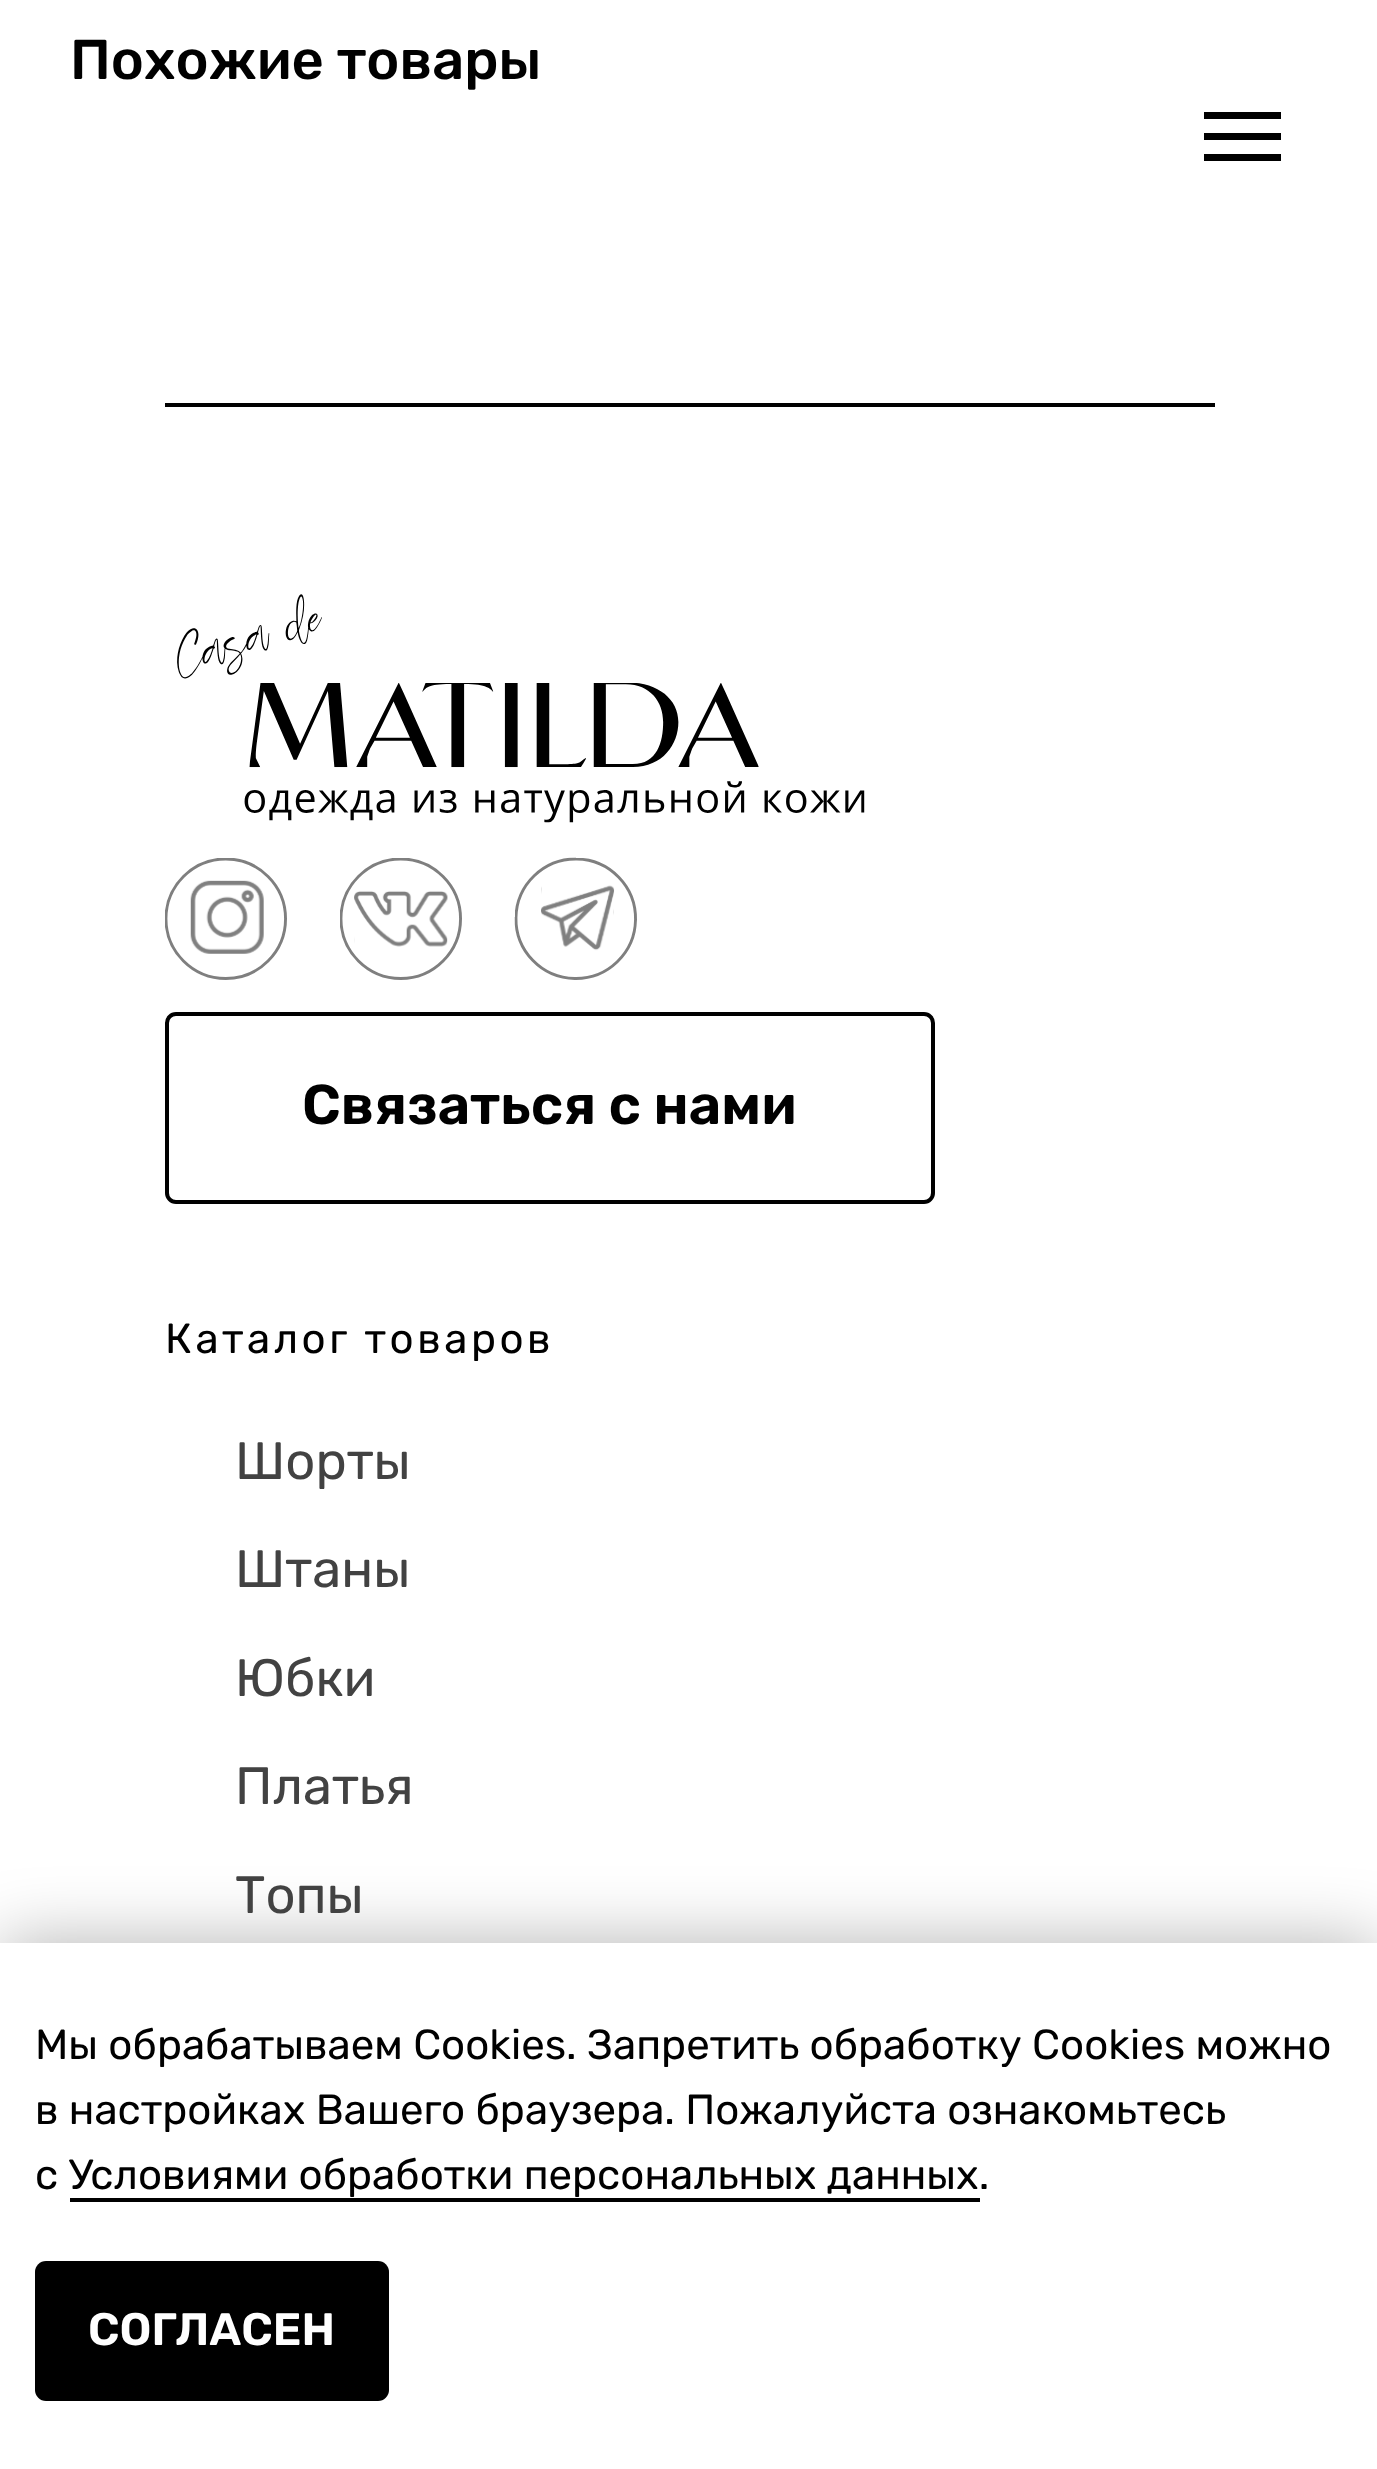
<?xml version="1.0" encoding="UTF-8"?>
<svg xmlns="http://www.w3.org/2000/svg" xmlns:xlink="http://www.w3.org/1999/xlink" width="1377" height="2469">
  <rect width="100%" height="100%" fill="#ffffff" />
  <rect x="1204" y="112" width="77" height="7" fill="#000000" />
  <rect x="1204" y="133" width="77" height="7" fill="#000000" />
  <rect x="1204" y="154" width="77" height="7" fill="#000000" />
  <rect x="165" y="403" width="1050" height="4" fill="#000000" />
  <image x="177" y="594" width="688" height="229" xlink:href="image1.png" />
  <image x="165" y="858" width="122" height="122" xlink:href="image2.png" />
  <image x="340" y="858" width="122" height="122" xlink:href="image3.png" />
  <image x="514" y="857" width="123" height="123" xlink:href="image4.png" />
  <rect x="167" y="1014" width="766" height="188" rx="9" fill="none" stroke="#000000" stroke-width="4" />
  <rect y="1943" width="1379" height="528" fill="#000000" fill-opacity="0.3" filter="blur(35px)" />
  <rect y="1943" width="1377" height="526" fill="#ffffff" />
  <rect x="70" y="2198" width="910" height="4" fill="#000000" />
  <rect x="35" y="2261" width="354" height="140" rx="11" fill="#000000" />
  <text x="70" y="79" style="font-family: Rubik; font-size: 56px; font-weight: 500; fill: #000000">Похожие товары</text>
  <text x="302" y="1124" style="font-family: Rubik; font-size: 56px; font-weight: 600; fill: #000000">Связаться с нами</text>
  <text x="165" y="1353" style="font-family: Rubik; font-size: 42px; letter-spacing: 3.5px; fill: #000000">Каталог товаров</text>
  <text x="235" y="1479" style="font-family: Rubik; font-size: 52.5px; fill: #424242">Шорты</text>
  <text x="235" y="1587" style="font-family: Rubik; font-size: 52.5px; fill: #424242">Штаны</text>
  <text x="235" y="1696" style="font-family: Rubik; font-size: 52.5px; fill: #424242">Юбки</text>
  <text x="235" y="1804" style="font-family: Rubik; font-size: 52.5px; fill: #424242">Платья</text>
  <text x="235" y="1913" style="font-family: Rubik; font-size: 52.5px; fill: #424242">Топы</text>
  <text x="35" y="2059" style="font-family: Rubik; font-size: 42px; fill: #000000">Мы обрабатываем Cookies. Запретить обработку Cookies можно</text>
  <text x="35" y="2124" style="font-family: Rubik; font-size: 42px; fill: #000000">в настройках Вашего браузера. Пожалуйста ознакомьтесь</text>
  <text x="35" y="2189" style="font-family: Rubik; font-size: 42px; fill: #000000">с Условиями обработки персональных данных.</text>
  <text x="88" y="2345" style="font-family: Rubik; font-size: 45.5px; font-weight: 600; fill: #ffffff">СОГЛАСЕН</text>
</svg>
